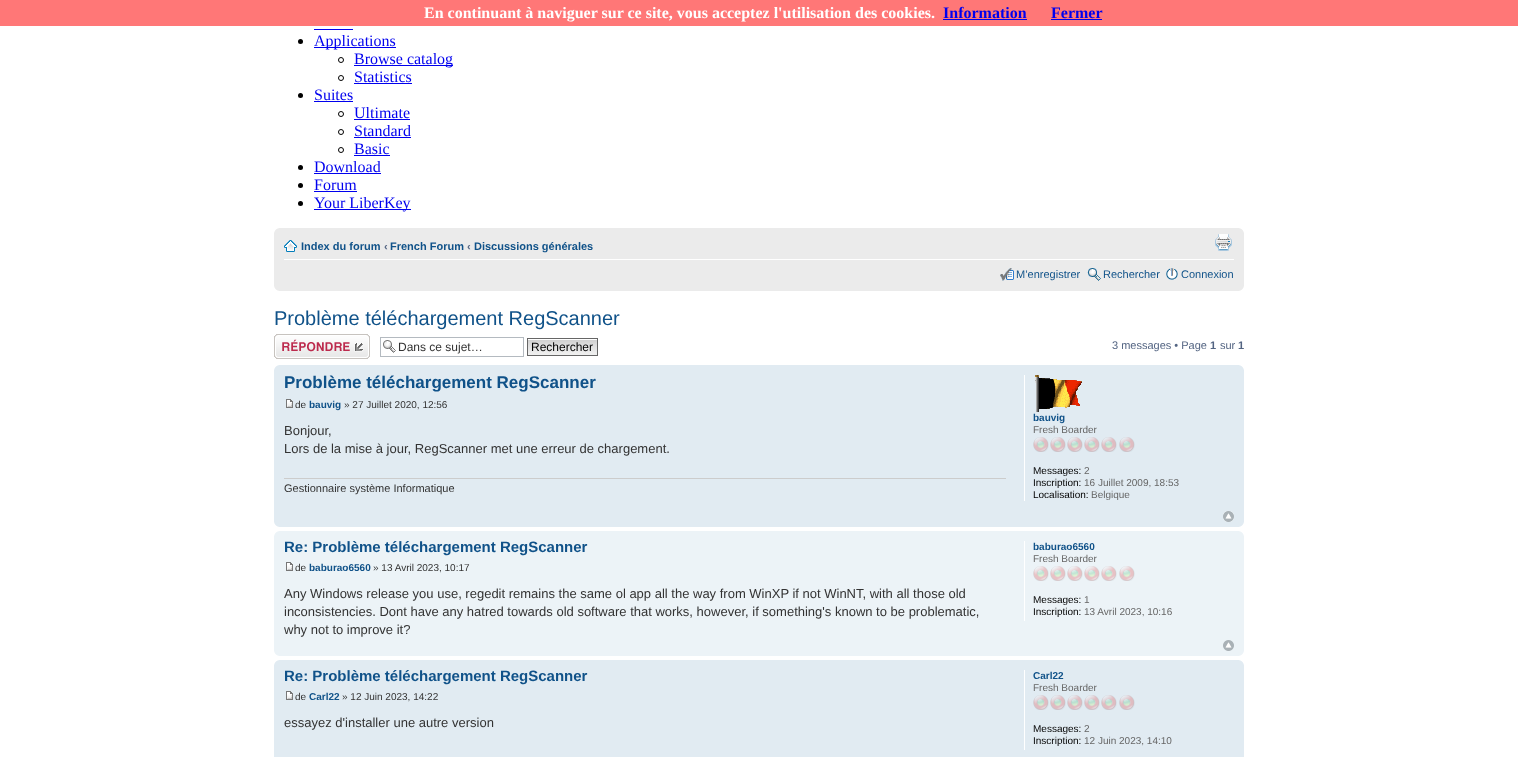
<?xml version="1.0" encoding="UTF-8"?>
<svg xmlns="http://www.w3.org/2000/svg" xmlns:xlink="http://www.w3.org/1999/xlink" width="1518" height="757">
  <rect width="100%" height="100%" fill="#ffffff" />
  <rect width="1518" height="26" fill="#ff7777" />
  <rect x="943" y="19" width="84" height="1" fill="#0000ee" />
  <rect x="1051" y="19" width="51" height="1" fill="#0000ee" />
  <rect x="314" y="29" width="39" height="1" fill="#0000ee" />
  <circle cx="300.5" cy="41.5" r="2.5" fill="#000000" />
  <rect x="314" y="47" width="82" height="1" fill="#0000ee" />
  <circle cx="341" cy="60" r="2.5" fill="none" stroke="#000000" />
  <rect x="354" y="65" width="99" height="1" fill="#0000ee" />
  <circle cx="341" cy="78" r="2.5" fill="none" stroke="#000000" />
  <rect x="354" y="83" width="58" height="1" fill="#0000ee" />
  <circle cx="300.5" cy="95.5" r="2.5" fill="#000000" />
  <rect x="314" y="101" width="39" height="1" fill="#0000ee" />
  <circle cx="341" cy="114" r="2.5" fill="none" stroke="#000000" />
  <rect x="354" y="119" width="56" height="1" fill="#0000ee" />
  <circle cx="341" cy="132" r="2.5" fill="none" stroke="#000000" />
  <rect x="354" y="137" width="57" height="1" fill="#0000ee" />
  <circle cx="341" cy="150" r="2.5" fill="none" stroke="#000000" />
  <rect x="354" y="155" width="36" height="1" fill="#0000ee" />
  <circle cx="300.5" cy="167.5" r="2.5" fill="#000000" />
  <rect x="314" y="173" width="67" height="1" fill="#0000ee" />
  <circle cx="300.5" cy="185.5" r="2.5" fill="#000000" />
  <rect x="314" y="191" width="43" height="1" fill="#0000ee" />
  <circle cx="300.5" cy="203.5" r="2.5" fill="#000000" />
  <rect x="314" y="209" width="97" height="1" fill="#0000ee" />
  <rect x="274" y="228" width="970" height="63" fill="#ebebeb" />
  <image x="274" y="228" width="5" height="5" xlink:href="image1.png" />
  <image x="1239" y="228" width="5" height="5" xlink:href="image2.png" />
  <rect x="284" y="259" width="950" height="1" fill="#ffffff" />
  <image x="284" y="240" width="13" height="12" xlink:href="image3.png" />
  <image x="1215" y="234" width="17" height="17" xlink:href="image4.png" />
  <image x="1000" y="268" width="14" height="13" xlink:href="image5.png" />
  <image x="1087" y="268" width="14" height="13" xlink:href="image6.png" />
  <image x="1166" y="268" width="12" height="12" xlink:href="image7.png" />
  <image x="274" y="286" width="5" height="5" xlink:href="image8.png" />
  <image x="1239" y="286" width="5" height="5" xlink:href="image9.png" />
  <image x="274" y="334" width="96" height="25" xlink:href="image10.png" />
  <image x="383" y="340" width="13" height="13" xlink:href="image11.png" />
  <rect x="380.5" y="337.5" width="143" height="19" fill="none" stroke="#b4bac0" />
  <image x="528" y="339" width="69" height="16" xlink:href="image12.png" />
  <rect x="527.5" y="338.5" width="70" height="17" fill="none" stroke="#666666" />
  <rect x="274" y="365" width="970" height="162" fill="#e1ebf2" />
  <image x="274" y="365" width="5" height="5" xlink:href="image13.png" />
  <image x="1239" y="365" width="5" height="5" xlink:href="image14.png" />
  <image x="286" y="399" width="7" height="9" xlink:href="image15.png" />
  <rect x="284" y="478" width="722" height="1" fill="#cccccc" />
  <rect x="1024" y="375" width="1" height="126" fill="#ffffff" />
  <image x="1035" y="375" width="47" height="37" xlink:href="image16.png" />
  <image x="1033" y="437" width="102" height="15" xlink:href="image17.png" />
  <image x="1223" y="511" width="11" height="11" xlink:href="image18.png" />
  <image x="274" y="522" width="5" height="5" xlink:href="image19.png" />
  <image x="1239" y="522" width="5" height="5" xlink:href="image20.png" />
  <rect x="274" y="531" width="970" height="125" fill="#ecf3f7" />
  <image x="274" y="531" width="5" height="5" xlink:href="image21.png" />
  <image x="1239" y="531" width="5" height="5" xlink:href="image22.png" />
  <image x="286" y="562" width="7" height="9" xlink:href="image23.png" />
  <rect x="1024" y="541" width="1" height="80" fill="#ffffff" />
  <image x="1033" y="566" width="102" height="15" xlink:href="image24.png" />
  <image x="1223" y="640" width="11" height="11" xlink:href="image25.png" />
  <image x="274" y="651" width="5" height="5" xlink:href="image26.png" />
  <image x="1239" y="651" width="5" height="5" xlink:href="image27.png" />
  <rect x="274" y="660" width="970" height="97" fill="#e1ebf2" />
  <image x="274" y="660" width="5" height="5" xlink:href="image13.png" />
  <image x="1239" y="660" width="5" height="5" xlink:href="image14.png" />
  <image x="286" y="691" width="7" height="9" xlink:href="image15.png" />
  <rect x="1024" y="670" width="1" height="80" fill="#ffffff" />
  <image x="1033" y="695" width="102" height="15" xlink:href="image17.png" />
  <text x="424" y="18" style="font-family: Liberation Serif; font-size: 16px; font-weight: bold; fill: #ffffff">En continuant à naviguer sur ce site, vous acceptez l'utilisation des cookies.</text>
  <text x="943" y="18" style="font-family: Liberation Serif; font-size: 16px; font-weight: bold; fill: #0000ee">Information</text>
  <text x="1051" y="18" style="font-family: Liberation Serif; font-size: 16px; font-weight: bold; fill: #0000ee">Fermer</text>
  <text x="314" y="46" style="font-family: Liberation Serif; font-size: 16px; fill: #0000ee">Applications</text>
  <text x="354" y="64" style="font-family: Liberation Serif; font-size: 16px; fill: #0000ee">Browse catalog</text>
  <text x="354" y="82" style="font-family: Liberation Serif; font-size: 16px; fill: #0000ee">Statistics</text>
  <text x="314" y="100" style="font-family: Liberation Serif; font-size: 16px; fill: #0000ee">Suites</text>
  <text x="354" y="118" style="font-family: Liberation Serif; font-size: 16px; fill: #0000ee">Ultimate</text>
  <text x="354" y="136" style="font-family: Liberation Serif; font-size: 16px; fill: #0000ee">Standard</text>
  <text x="354" y="154" style="font-family: Liberation Serif; font-size: 16px; fill: #0000ee">Basic</text>
  <text x="314" y="172" style="font-family: Liberation Serif; font-size: 16px; fill: #0000ee">Download</text>
  <text x="314" y="190" style="font-family: Liberation Serif; font-size: 16px; fill: #0000ee">Forum</text>
  <text x="314" y="208" style="font-family: Liberation Serif; font-size: 16px; fill: #0000ee">Your LiberKey</text>
  <text x="301" y="250" style="font-family: Liberation Sans; font-size: 11px; font-weight: bold; fill: #105289">Index du forum</text>
  <text x="384" y="250" style="font-family: Liberation Sans; font-size: 11px; font-weight: bold; fill: #536482">‹</text>
  <text x="390" y="250" style="font-family: Liberation Sans; font-size: 11px; font-weight: bold; fill: #105289">French Forum</text>
  <text x="467" y="250" style="font-family: Liberation Sans; font-size: 11px; font-weight: bold; fill: #536482">‹</text>
  <text x="474" y="250" style="font-family: Liberation Sans; font-size: 11px; font-weight: bold; fill: #105289">Discussions générales</text>
  <text x="1016" y="278" style="font-family: Liberation Sans; font-size: 11px; fill: #105289">M’enregistrer</text>
  <text x="1103" y="278" style="font-family: Liberation Sans; font-size: 11px; fill: #105289">Rechercher</text>
  <text x="1181" y="278" style="font-family: Liberation Sans; font-size: 11px; fill: #105289">Connexion</text>
  <text x="274" y="325" style="font-family: Liberation Sans; font-size: 20px; fill: #105289">Problème téléchargement RegScanner</text>
  <text x="398" y="351" style="font-family: Liberation Sans; font-size: 12px; fill: #333333">Dans ce sujet…</text>
  <text x="531" y="351" style="font-family: Liberation Sans; font-size: 12px; fill: #000000">Rechercher</text>
  <text x="1112" y="349" style="font-family: Liberation Sans; font-size: 11px; fill: #536482">3 messages • Page</text>
  <text x="1210" y="349" style="font-family: Liberation Sans; font-size: 11px; font-weight: bold; fill: #536482">1</text>
  <text x="1220" y="349" style="font-family: Liberation Sans; font-size: 11px; fill: #536482">sur</text>
  <text x="1238" y="349" style="font-family: Liberation Sans; font-size: 11px; font-weight: bold; fill: #536482">1</text>
  <text x="284" y="388" style="font-family: Liberation Sans; font-size: 17px; font-weight: bold; fill: #105289">Problème téléchargement RegScanner</text>
  <text x="295" y="408" style="font-family: Liberation Sans; font-size: 10px; fill: #333333">de</text>
  <text x="309" y="408" style="font-family: Liberation Sans; font-size: 10px; font-weight: bold; fill: #105289">bauvig</text>
  <text x="344" y="408" style="font-family: Liberation Sans; font-size: 10px; fill: #333333">» 27 Juillet 2020, 12:56</text>
  <text x="284" y="435" style="font-family: Liberation Sans; font-size: 13px; fill: #333333">Bonjour,</text>
  <text x="284" y="453" style="font-family: Liberation Sans; font-size: 13px; fill: #333333">Lors de la mise à jour, RegScanner met une erreur de chargement.</text>
  <text x="284" y="492" style="font-family: Liberation Sans; font-size: 11px; fill: #333333">Gestionnaire système Informatique</text>
  <text x="1033" y="421" style="font-family: Liberation Sans; font-size: 10px; font-weight: bold; fill: #105289">bauvig</text>
  <text x="1033" y="433" style="font-family: Liberation Sans; font-size: 10px; fill: #666666">Fresh Boarder</text>
  <text x="1033" y="474" style="font-family: Liberation Sans; font-size: 10px; fill: #000000">Messages:</text>
  <text x="1084" y="474" style="font-family: Liberation Sans; font-size: 10px; fill: #666666">2</text>
  <text x="1033" y="486" style="font-family: Liberation Sans; font-size: 10px; fill: #000000">Inscription:</text>
  <text x="1084" y="486" style="font-family: Liberation Sans; font-size: 10px; fill: #666666">16 Juillet 2009, 18:53</text>
  <text x="1033" y="498" style="font-family: Liberation Sans; font-size: 10px; fill: #000000">Localisation:</text>
  <text x="1091" y="498" style="font-family: Liberation Sans; font-size: 10px; fill: #666666">Belgique</text>
  <text x="284" y="552" style="font-family: Liberation Sans; font-size: 15px; font-weight: bold; fill: #105289">Re: Problème téléchargement RegScanner</text>
  <text x="295" y="571" style="font-family: Liberation Sans; font-size: 10px; fill: #333333">de</text>
  <text x="309" y="571" style="font-family: Liberation Sans; font-size: 10px; font-weight: bold; fill: #105289">baburao6560</text>
  <text x="373" y="571" style="font-family: Liberation Sans; font-size: 10px; fill: #333333">» 13 Avril 2023, 10:17</text>
  <text x="284" y="598" style="font-family: Liberation Sans; font-size: 13px; fill: #333333">Any Windows release you use, regedit remains the same ol app all the way from WinXP if not WinNT, with all those old</text>
  <text x="284" y="616" style="font-family: Liberation Sans; font-size: 13px; fill: #333333">inconsistencies. Dont have any hatred towards old software that works, however, if something's known to be problematic,</text>
  <text x="284" y="634" style="font-family: Liberation Sans; font-size: 13px; fill: #333333">why not to improve it?</text>
  <text x="1033" y="550" style="font-family: Liberation Sans; font-size: 10px; font-weight: bold; fill: #105289">baburao6560</text>
  <text x="1033" y="562" style="font-family: Liberation Sans; font-size: 10px; fill: #666666">Fresh Boarder</text>
  <text x="1033" y="603" style="font-family: Liberation Sans; font-size: 10px; fill: #000000">Messages:</text>
  <text x="1084" y="603" style="font-family: Liberation Sans; font-size: 10px; fill: #666666">1</text>
  <text x="1033" y="615" style="font-family: Liberation Sans; font-size: 10px; fill: #000000">Inscription:</text>
  <text x="1084" y="615" style="font-family: Liberation Sans; font-size: 10px; fill: #666666">13 Avril 2023, 10:16</text>
  <text x="284" y="681" style="font-family: Liberation Sans; font-size: 15px; font-weight: bold; fill: #105289">Re: Problème téléchargement RegScanner</text>
  <text x="295" y="700" style="font-family: Liberation Sans; font-size: 10px; fill: #333333">de</text>
  <text x="309" y="700" style="font-family: Liberation Sans; font-size: 10px; font-weight: bold; fill: #105289">Carl22</text>
  <text x="342" y="700" style="font-family: Liberation Sans; font-size: 10px; fill: #333333">» 12 Juin 2023, 14:22</text>
  <text x="284" y="727" style="font-family: Liberation Sans; font-size: 13px; fill: #333333">essayez d'installer une autre version</text>
  <text x="1033" y="679" style="font-family: Liberation Sans; font-size: 10px; font-weight: bold; fill: #105289">Carl22</text>
  <text x="1033" y="691" style="font-family: Liberation Sans; font-size: 10px; fill: #666666">Fresh Boarder</text>
  <text x="1033" y="732" style="font-family: Liberation Sans; font-size: 10px; fill: #000000">Messages:</text>
  <text x="1084" y="732" style="font-family: Liberation Sans; font-size: 10px; fill: #666666">2</text>
  <text x="1033" y="744" style="font-family: Liberation Sans; font-size: 10px; fill: #000000">Inscription:</text>
  <text x="1084" y="744" style="font-family: Liberation Sans; font-size: 10px; fill: #666666">12 Juin 2023, 14:10</text>
</svg>
